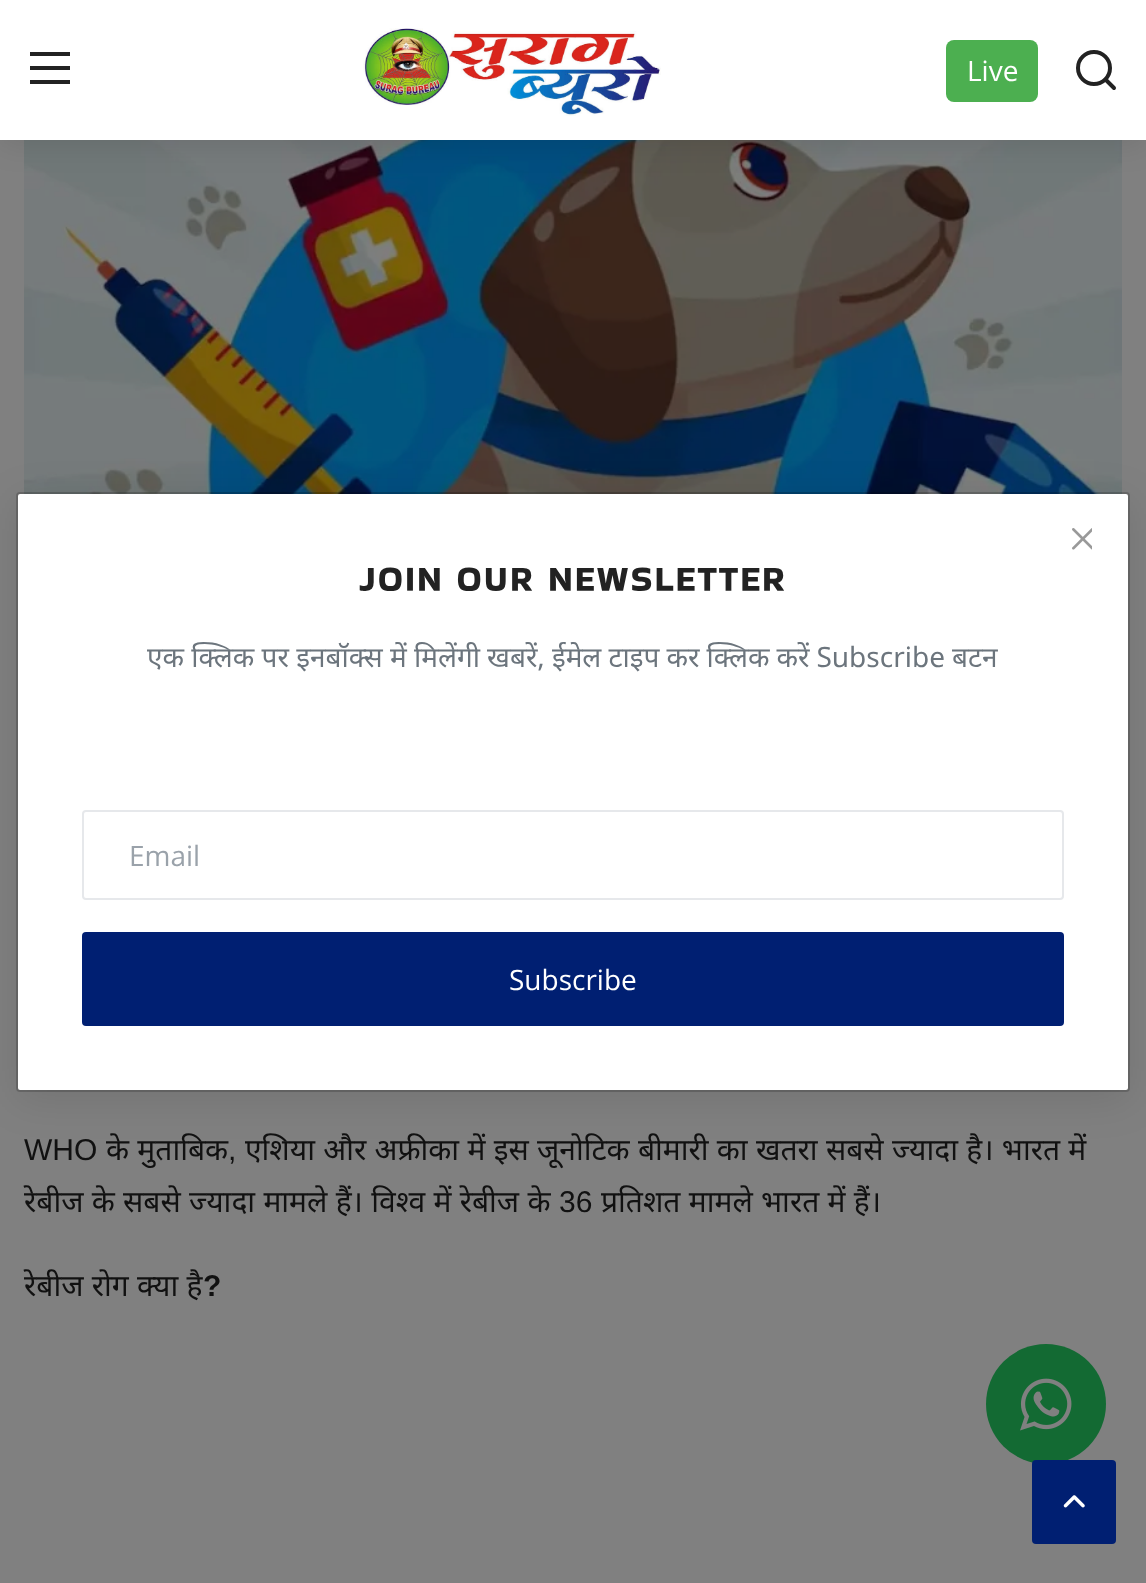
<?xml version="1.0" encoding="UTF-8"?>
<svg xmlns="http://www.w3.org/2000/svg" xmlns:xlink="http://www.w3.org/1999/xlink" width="1146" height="1583">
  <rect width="100%" height="100%" fill="#808080" />
  <image x="24" y="140" width="1098" height="354" xlink:href="image3.png" />
  <rect y="4" width="1146" height="140" fill="#000000" fill-opacity="0.1" filter="blur(15px)" />
  <rect width="1146" height="140" fill="#ffffff" />
  <rect x="30" y="52" width="40" height="4" fill="#222222" />
  <rect x="30" y="66" width="40" height="4" fill="#222222" />
  <rect x="30" y="80" width="40" height="4" fill="#222222" />
  <image x="363" y="28" width="298" height="88" xlink:href="image1.png" />
  <rect x="946" y="40" width="92" height="62" rx="8" fill="#4caf50" />
  <circle cx="1094" cy="68" r="16" fill="none" stroke="#222222" stroke-width="4" />
  <path d="M 1114 88 l -8.5 -8.5" fill="none" stroke="#222222" stroke-width="4" stroke-linecap="round" stroke-linejoin="round" />
  <rect x="16" y="500" width="1114" height="600" rx="4" fill="#000000" fill-opacity="0.1" filter="blur(20px)" />
  <rect x="18" y="494" width="1110" height="596" rx="2" fill="#ffffff" />
  <rect x="17" y="493" width="1112" height="598" rx="3" fill="none" stroke="#000000" stroke-opacity="0.18" stroke-width="2" />
  <image x="1072" y="528" width="20" height="22" xlink:href="image2.png" />
  <rect x="83" y="811" width="980" height="88" rx="3" fill="none" stroke="#e6e8eb" stroke-width="2" />
  <rect x="82" y="932" width="982" height="94" rx="4" fill="#001f72" />
  <circle cx="1046" cy="1404" r="60" fill="#136a33" />
  <image x="1020" y="1378" width="52" height="53" xlink:href="image4.png" />
  <rect x="1032" y="1460" width="84" height="84" rx="4" fill="#001f72" />
  <image x="1063" y="1495" width="22" height="13" xlink:href="image5.png" />
  <text x="967" y="81" style="font-family: Open Sans; font-size: 28px; fill: #ffffff">Live</text>
  <text x="359" y="591" style="font-family: Bakbak One; font-size: 36px; letter-spacing: 2px; fill: #222222">JOIN OUR NEWSLETTER</text>
  <text x="147" y="667" style="font-family: Noto Sans; font-size: 28px; fill: #6c757d">एक क्‍लिक पर इनबॉक्‍स में मिलेंगी</text>
  <text x="487" y="667" word-spacing="-0.25" style="font-family: Noto Sans; font-size: 28px; fill: #6c757d">खबरें, ईमेल टाइप कर क्‍लिक करें Subscribe बटन</text>
  <text x="129" y="866" style="font-family: Open Sans; font-size: 28px; fill: #9aa2aa">Email</text>
  <text x="509" y="990" style="font-family: Open Sans; font-size: 28px; fill: #ffffff">Subscribe</text>
  <text x="24" y="1160" style="font-family: Liberation Sans; font-size: 30px; fill: #111111">WHO</text>
  <text x="106" y="1160" word-spacing="0.5" style="font-family: Noto Sans; font-size: 30px; fill: #111111">के मुताबिक</text>
  <text x="228" y="1160" style="font-family: Liberation Sans; font-size: 30px; fill: #111111">,</text>
  <text x="245" y="1160" word-spacing="0.5" style="font-family: Noto Sans; font-size: 30px; fill: #111111">एशिया और अफ्रीका में इस जूनोटिक बीमारी का खतरा सबसे ज्यादा है। भारत में</text>
  <text x="24" y="1212" word-spacing="0.5" style="font-family: Noto Sans; font-size: 30px; fill: #111111">रेबीज के सबसे ज्यादा मामले हैं। विश्व में रेबीज के</text>
  <text x="559" y="1212" style="font-family: Liberation Sans; font-size: 30px; fill: #111111">36</text>
  <text x="601" y="1212" word-spacing="0.5" style="font-family: Noto Sans; font-size: 30px; fill: #111111">प्रतिशत मामले भारत में हैं।</text>
  <text x="24" y="1296" word-spacing="0.5" style="font-family: Noto Sans; font-size: 30px; fill: #111111">रेबीज रोग क्या है</text>
  <text x="203" y="1296" style="font-family: Liberation Sans; font-size: 30px; font-weight: bold; fill: #111111">?</text>
</svg>
